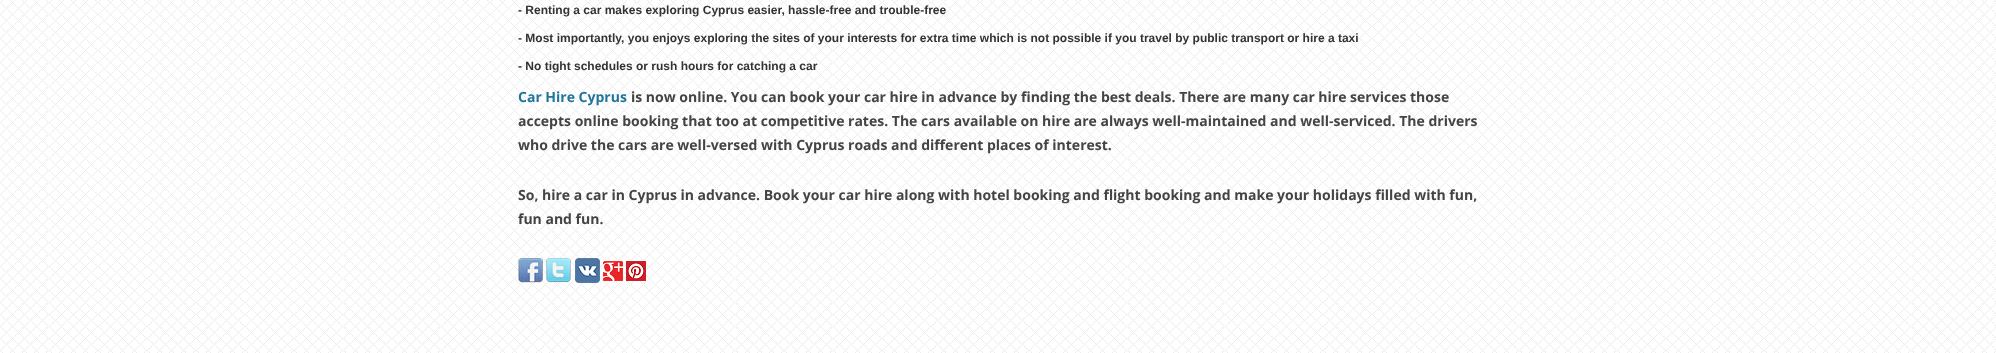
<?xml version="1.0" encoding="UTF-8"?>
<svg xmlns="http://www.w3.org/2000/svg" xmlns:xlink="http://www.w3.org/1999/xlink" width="1996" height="353">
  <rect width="100%" height="100%" fill="#ffffff" />
  <image x="0" y="0" width="1996" height="353" xlink:href="image1.png" />
  <image x="518" y="258" width="25" height="25" xlink:href="image2.png" />
  <image x="546" y="258" width="25" height="25" xlink:href="image3.png" />
  <image x="575" y="258" width="25" height="25" xlink:href="image4.png" />
  <image x="603" y="261" width="20" height="20" xlink:href="image5.png" />
  <image x="626" y="261" width="20" height="20" xlink:href="image6.png" />
  <text x="518" y="14" style="font-family: Liberation Sans; font-size: 12px; font-weight: bold; fill: #333333">- Renting a car makes exploring Cyprus easier, hassle-free and trouble-free</text>
  <text x="518" y="42" style="font-family: Liberation Sans; font-size: 12px; font-weight: bold; fill: #333333">- Most importantly, you enjoys exploring the sites of your interests for extra time which is not possible if you travel by public transport or hire a taxi</text>
  <text x="518" y="70" style="font-family: Liberation Sans; font-size: 12px; font-weight: bold; fill: #333333">- No tight schedules or rush hours for catching a car</text>
  <text x="518" y="102" style="font-family: Open Sans; font-size: 14px; font-weight: bold; fill: #21759b">Car Hire Cyprus</text>
  <text x="631" y="102" style="font-family: Open Sans; font-size: 14px; font-weight: bold; fill: #444444">is now online. You can book your car hire in advance by finding the best deals. There are many car hire services those</text>
  <text x="518" y="126" style="font-family: Open Sans; font-size: 14px; font-weight: bold; fill: #444444">accepts online booking that too at competitive rates. The cars available on hire are always well-maintained and well-serviced. The drivers</text>
  <text x="518" y="150" style="font-family: Open Sans; font-size: 14px; font-weight: bold; fill: #444444">who drive the cars are well-versed with Cyprus roads and different places of interest.</text>
  <text x="518" y="200" style="font-family: Open Sans; font-size: 14px; font-weight: bold; fill: #444444">So, hire a car in Cyprus in advance. Book your car hire along with hotel booking and flight booking and make your holidays filled with fun,</text>
  <text x="518" y="224" style="font-family: Open Sans; font-size: 14px; font-weight: bold; fill: #444444">fun and fun.</text>
</svg>
